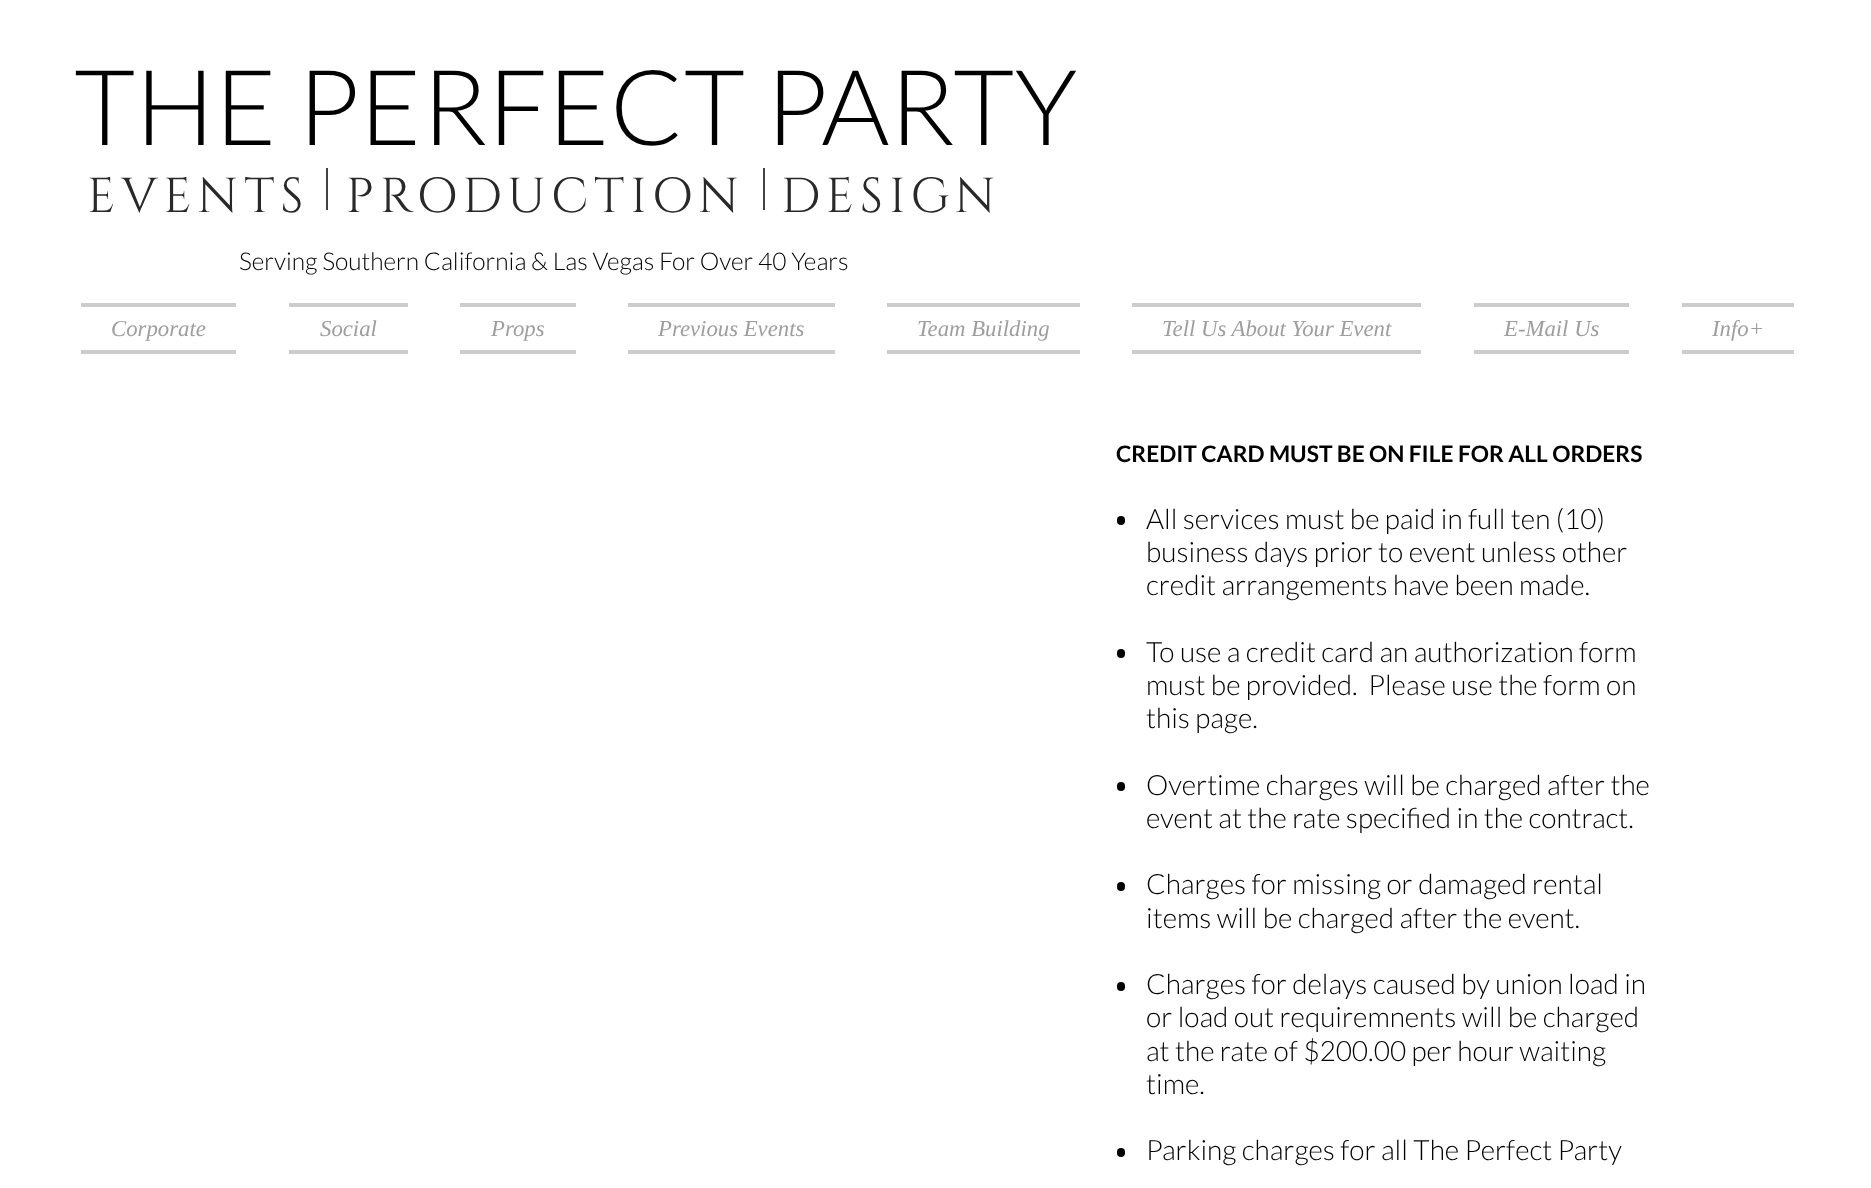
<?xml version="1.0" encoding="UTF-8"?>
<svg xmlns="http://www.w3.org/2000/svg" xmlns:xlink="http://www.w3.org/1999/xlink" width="1871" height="1188">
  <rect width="100%" height="100%" fill="#ffffff" />
  <rect x="81" y="303" width="155" height="4" fill="#cccccc" />
  <rect x="81" y="350" width="155" height="4" fill="#cccccc" />
  <rect x="289" y="303" width="119" height="4" fill="#cccccc" />
  <rect x="289" y="350" width="119" height="4" fill="#cccccc" />
  <rect x="460" y="303" width="116" height="4" fill="#cccccc" />
  <rect x="460" y="350" width="116" height="4" fill="#cccccc" />
  <rect x="628" y="303" width="207" height="4" fill="#cccccc" />
  <rect x="628" y="350" width="207" height="4" fill="#cccccc" />
  <rect x="887" y="303" width="193" height="4" fill="#cccccc" />
  <rect x="887" y="350" width="193" height="4" fill="#cccccc" />
  <rect x="1132" y="303" width="289" height="4" fill="#cccccc" />
  <rect x="1132" y="350" width="289" height="4" fill="#cccccc" />
  <rect x="1474" y="303" width="155" height="4" fill="#cccccc" />
  <rect x="1474" y="350" width="155" height="4" fill="#cccccc" />
  <rect x="1682" y="303" width="112" height="4" fill="#cccccc" />
  <rect x="1682" y="350" width="112" height="4" fill="#cccccc" />
  <rect x="1117" y="516" width="8" height="9" rx="4" fill="#000000" />
  <rect x="1117" y="649" width="8" height="9" rx="4" fill="#000000" />
  <rect x="1117" y="782" width="8" height="9" rx="4" fill="#000000" />
  <rect x="1117" y="882" width="8" height="9" rx="4" fill="#000000" />
  <rect x="1117" y="982" width="8" height="9" rx="4" fill="#000000" />
  <rect x="1117" y="1148" width="8" height="9" rx="4" fill="#000000" />
  <text x="74" y="145" style="font-family: Lato; font-size: 105px; font-weight: 300; fill: #000000">THE PERFECT PARTY</text>
  <text x="87" y="212" style="font-family: Cinzel; font-size: 49px; letter-spacing: 5.9px; fill: #292929" xml:space="preserve">EVENTS  PRODUCTION  DESIGN</text>
  <rect x="326" y="168" width="2" height="42" fill="#424242" />
  <rect x="763" y="168" width="2" height="42" fill="#424242" />
  <text x="239" y="270" style="font-family: Lato; font-size: 24.5px; font-weight: 300; fill: #000000">Serving Southern California &amp; Las Vegas For Over 40 Years</text>
  <text x="111" y="336" style="font-family: Liberation Serif; font-size: 22.75px; font-style: italic; fill: #9e9e9e">Corporate</text>
  <text x="320" y="336" style="font-family: Liberation Serif; font-size: 22.75px; font-style: italic; fill: #9e9e9e">Social</text>
  <text x="491" y="336" style="font-family: Liberation Serif; font-size: 22.75px; font-style: italic; fill: #9e9e9e">Props</text>
  <text x="658" y="336" style="font-family: Liberation Serif; font-size: 22.75px; font-style: italic; fill: #9e9e9e">Previous Events</text>
  <text x="917" y="336" style="font-family: Liberation Serif; font-size: 22.75px; font-style: italic; fill: #9e9e9e">Team Building</text>
  <text x="1162" y="336" style="font-family: Liberation Serif; font-size: 22.75px; font-style: italic; fill: #9e9e9e">Tell Us About Your Event</text>
  <text x="1504" y="336" style="font-family: Liberation Serif; font-size: 22.75px; font-style: italic; fill: #9e9e9e">E-Mail Us</text>
  <text x="1712" y="336" style="font-family: Liberation Serif; font-size: 22.75px; font-style: italic; fill: #9e9e9e">Info+</text>
  <text x="1116" y="462" style="font-family: Lato; font-size: 22.75px; font-weight: bold; fill: #000000">CREDIT CARD MUST BE ON FILE FOR ALL ORDERS</text>
  <text x="1146" y="529" style="font-family: Lato; font-size: 28px; font-weight: 300; fill: #000000">All services must be paid in full ten (10)</text>
  <text x="1146" y="562" style="font-family: Lato; font-size: 28px; font-weight: 300; fill: #000000">business days prior to event unless other</text>
  <text x="1146" y="595" style="font-family: Lato; font-size: 28px; font-weight: 300; fill: #000000">credit arrangements have been made.</text>
  <text x="1146" y="662" style="font-family: Lato; font-size: 28px; font-weight: 300; fill: #000000">To use a credit card an authorization form</text>
  <text x="1146" y="695" style="font-family: Lato; font-size: 28px; font-weight: 300; fill: #000000" xml:space="preserve">must be provided.  Please use the form on</text>
  <text x="1146" y="728" style="font-family: Lato; font-size: 28px; font-weight: 300; fill: #000000">this page.</text>
  <text x="1146" y="795" style="font-family: Lato; font-size: 28px; font-weight: 300; fill: #000000">Overtime charges will be charged after the</text>
  <text x="1146" y="828" style="font-family: Lato; font-size: 28px; font-weight: 300; fill: #000000">event at the rate specified in the contract.</text>
  <text x="1146" y="894" style="font-family: Lato; font-size: 28px; font-weight: 300; fill: #000000">Charges for missing or damaged rental</text>
  <text x="1146" y="928" style="font-family: Lato; font-size: 28px; font-weight: 300; fill: #000000">items will be charged after the event.</text>
  <text x="1146" y="994" style="font-family: Lato; font-size: 28px; font-weight: 300; fill: #000000">Charges for delays caused by union load in</text>
  <text x="1146" y="1027" style="font-family: Lato; font-size: 28px; font-weight: 300; fill: #000000">or load out requiremnents will be charged</text>
  <text x="1146" y="1061" style="font-family: Lato; font-size: 28px; font-weight: 300; fill: #000000">at the rate of $200.00 per hour waiting</text>
  <text x="1146" y="1094" style="font-family: Lato; font-size: 28px; font-weight: 300; fill: #000000">time.</text>
  <text x="1146" y="1160" style="font-family: Lato; font-size: 28px; font-weight: 300; fill: #000000">Parking charges for all The Perfect Party</text>
</svg>
